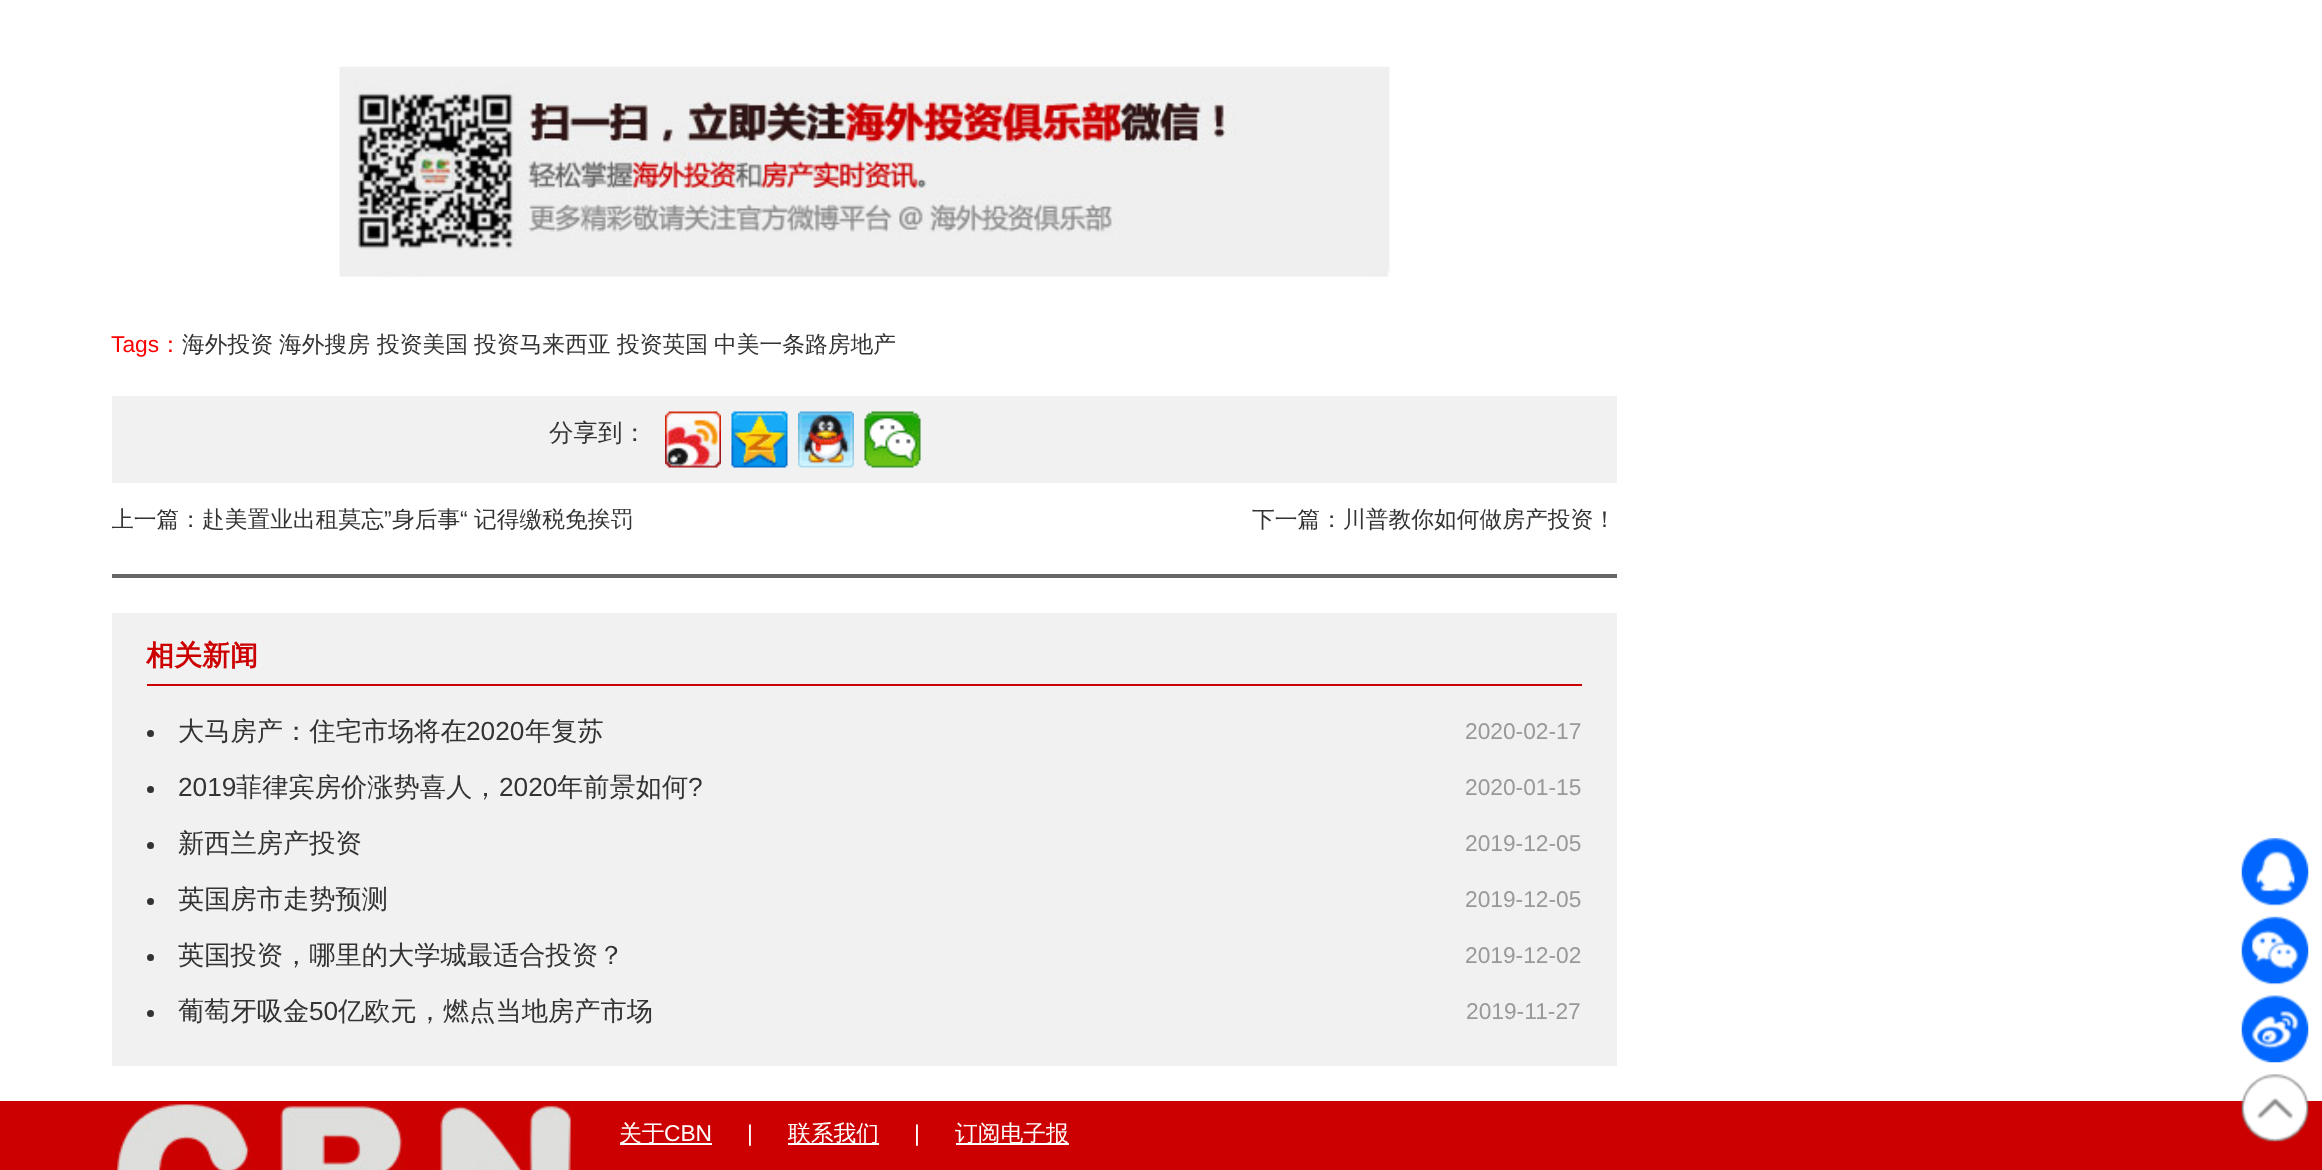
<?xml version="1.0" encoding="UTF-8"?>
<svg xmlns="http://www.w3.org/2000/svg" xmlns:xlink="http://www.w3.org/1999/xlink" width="2322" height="1170">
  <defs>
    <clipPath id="clip1"><rect x="112" y="501" width="700" height="38" /></clipPath>
  </defs>
  <rect width="100%" height="100%" fill="#ffffff" />
  <image x="339" y="66" width="1051" height="211" xlink:href="image1.png" />
  <rect x="112" y="396" width="1505" height="87" fill="#f1f1f1" />
  <image x="665" y="411" width="56" height="57" xlink:href="image2.png" />
  <image x="731" y="411" width="57" height="57" xlink:href="image3.png" />
  <image x="798" y="411" width="56" height="57" xlink:href="image4.png" />
  <image x="864" y="411" width="57" height="57" xlink:href="image5.png" />
  <rect x="112" y="574" width="1505" height="4" fill="#666666" />
  <rect x="112" y="613" width="1505" height="453" fill="#f1f1f1" />
  <rect x="147" y="684" width="1435" height="2" fill="#cc0000" />
  <circle cx="150.5" cy="733.5" r="3.5" fill="#333333" />
  <circle cx="150.5" cy="789.5" r="3.5" fill="#333333" />
  <circle cx="150.5" cy="845.5" r="3.5" fill="#333333" />
  <circle cx="150.5" cy="901.5" r="3.5" fill="#333333" />
  <circle cx="150.5" cy="957.5" r="3.5" fill="#333333" />
  <circle cx="150.5" cy="1013.5" r="3.5" fill="#333333" />
  <image x="2241" y="838" width="68" height="68" xlink:href="image6.png" />
  <image x="2241" y="916" width="68" height="69" xlink:href="image7.png" />
  <image x="2241" y="995" width="68" height="68" xlink:href="image8.png" />
  <rect y="1101" width="2322" height="69" fill="#cc0000" />
  <image x="2241" y="1074" width="68" height="68" xlink:href="image9.png" />
  <image x="112" y="1103" width="464" height="67" xlink:href="image10.png" />
  <rect x="620" y="1143" width="92" height="2" fill="#ffffff" />
  <rect x="788" y="1143" width="91" height="2" fill="#ffffff" />
  <rect x="956" y="1143" width="113" height="2" fill="#ffffff" />
  <text x="111" y="352" style="font-family: Liberation Sans; font-size: 22.75px; fill: #ff0000">Tags</text>
  <text x="159" y="352" style="font-family: WenQuanYi Zen Hei; font-size: 22.75px; font-weight: 500; fill: #ff0000">：</text>
  <text x="182" y="352" style="font-family: WenQuanYi Zen Hei; font-size: 22.75px; font-weight: 500; fill: #333333">海外投资</text>
  <text x="279" y="352" style="font-family: WenQuanYi Zen Hei; font-size: 22.75px; font-weight: 500; fill: #333333">海外搜房</text>
  <text x="377" y="352" style="font-family: WenQuanYi Zen Hei; font-size: 22.75px; font-weight: 500; fill: #333333">投资美国</text>
  <text x="474" y="352" style="font-family: WenQuanYi Zen Hei; font-size: 22.75px; font-weight: 500; fill: #333333">投资马来西亚</text>
  <text x="617" y="352" style="font-family: WenQuanYi Zen Hei; font-size: 22.75px; font-weight: 500; fill: #333333">投资英国</text>
  <text x="714" y="352" style="font-family: WenQuanYi Zen Hei; font-size: 22.75px; font-weight: 500; fill: #333333">中美一条路房地产</text>
  <text x="549" y="441" style="font-family: WenQuanYi Zen Hei; font-size: 24.5px; font-weight: 500; fill: #333333">分享到：</text>
  <g clip-path="url(#clip1)">
    <text x="111" y="527" style="font-family: WenQuanYi Zen Hei; font-size: 22.75px; font-weight: 500; fill: #333333">上一篇：赴美置业出租莫忘</text>
  </g>
  <text x="384" y="527" style="font-family: Liberation Sans; font-size: 22.75px; fill: #333333">”</text>
  <text x="392" y="527" style="font-family: WenQuanYi Zen Hei; font-size: 22.75px; font-weight: 500; fill: #333333">身后事</text>
  <text x="460" y="527" style="font-family: Liberation Sans; font-size: 22.75px; fill: #333333">“</text>
  <text x="474" y="527" style="font-family: WenQuanYi Zen Hei; font-size: 22.75px; font-weight: 500; fill: #333333">记得缴税免挨罚</text>
  <text x="1252" y="527" style="font-family: WenQuanYi Zen Hei; font-size: 22.75px; font-weight: 500; fill: #333333">下一篇：川普教你如何做房产投资！</text>
  <text x="146" y="665" style="font-family: WenQuanYi Zen Hei; font-size: 28px; font-weight: bold; fill: #cc0000">相关新闻</text>
  <text x="178" y="740" style="font-family: WenQuanYi Zen Hei; font-size: 26.25px; font-weight: 500; fill: #333333">大马房产：住宅市场将在</text>
  <text x="466" y="740" style="font-family: Liberation Sans; font-size: 26.25px; fill: #333333">2020</text>
  <text x="525" y="740" style="font-family: WenQuanYi Zen Hei; font-size: 26.25px; font-weight: 500; fill: #333333">年复苏</text>
  <text x="1465" y="739" style="font-family: Liberation Sans; font-size: 22.75px; fill: #999999">2020-02-17</text>
  <text x="178" y="796" style="font-family: Liberation Sans; font-size: 26.25px; fill: #333333">2019</text>
  <text x="236" y="796" style="font-family: WenQuanYi Zen Hei; font-size: 26.25px; font-weight: 500; fill: #333333">菲律宾房价涨势喜人，</text>
  <text x="499" y="796" style="font-family: Liberation Sans; font-size: 26.25px; fill: #333333">2020</text>
  <text x="557" y="796" style="font-family: WenQuanYi Zen Hei; font-size: 26.25px; font-weight: 500; fill: #333333">年前景如何</text>
  <text x="688" y="796" style="font-family: Liberation Sans; font-size: 26.25px; fill: #333333">?</text>
  <text x="1465" y="795" style="font-family: Liberation Sans; font-size: 22.75px; fill: #999999">2020-01-15</text>
  <text x="178" y="852" style="font-family: WenQuanYi Zen Hei; font-size: 26.25px; font-weight: 500; fill: #333333">新西兰房产投资</text>
  <text x="1465" y="851" style="font-family: Liberation Sans; font-size: 22.75px; fill: #999999">2019-12-05</text>
  <text x="178" y="908" style="font-family: WenQuanYi Zen Hei; font-size: 26.25px; font-weight: 500; fill: #333333">英国房市走势预测</text>
  <text x="1465" y="907" style="font-family: Liberation Sans; font-size: 22.75px; fill: #999999">2019-12-05</text>
  <text x="178" y="964" style="font-family: WenQuanYi Zen Hei; font-size: 26.25px; font-weight: 500; fill: #333333">英国投资，哪里的大学城最适合投资？</text>
  <text x="1465" y="963" style="font-family: Liberation Sans; font-size: 22.75px; fill: #999999">2019-12-02</text>
  <text x="178" y="1020" style="font-family: WenQuanYi Zen Hei; font-size: 26.25px; font-weight: 500; fill: #333333">葡萄牙吸金</text>
  <text x="309" y="1020" style="font-family: Liberation Sans; font-size: 26.25px; fill: #333333">50</text>
  <text x="338" y="1020" style="font-family: WenQuanYi Zen Hei; font-size: 26.25px; font-weight: 500; fill: #333333">亿欧元，燃点当地房产市场</text>
  <text x="1466" y="1019" style="font-family: Liberation Sans; font-size: 22.75px; fill: #999999">2019-11-27</text>
  <text x="619" y="1141" style="font-family: WenQuanYi Zen Hei; font-size: 22.75px; font-weight: 500; fill: #ffffff">关于</text>
  <text x="664" y="1141" style="font-family: Liberation Sans; font-size: 22.75px; fill: #ffffff">CBN</text>
  <text x="747" y="1141" style="font-family: Liberation Sans; font-size: 22.75px; fill: #ffffff">|</text>
  <text x="788" y="1141" style="font-family: WenQuanYi Zen Hei; font-size: 22.75px; font-weight: 500; fill: #ffffff">联系我们</text>
  <text x="914" y="1141" style="font-family: Liberation Sans; font-size: 22.75px; fill: #ffffff">|</text>
  <text x="955" y="1141" style="font-family: WenQuanYi Zen Hei; font-size: 22.75px; font-weight: 500; fill: #ffffff">订阅电子报</text>
</svg>
